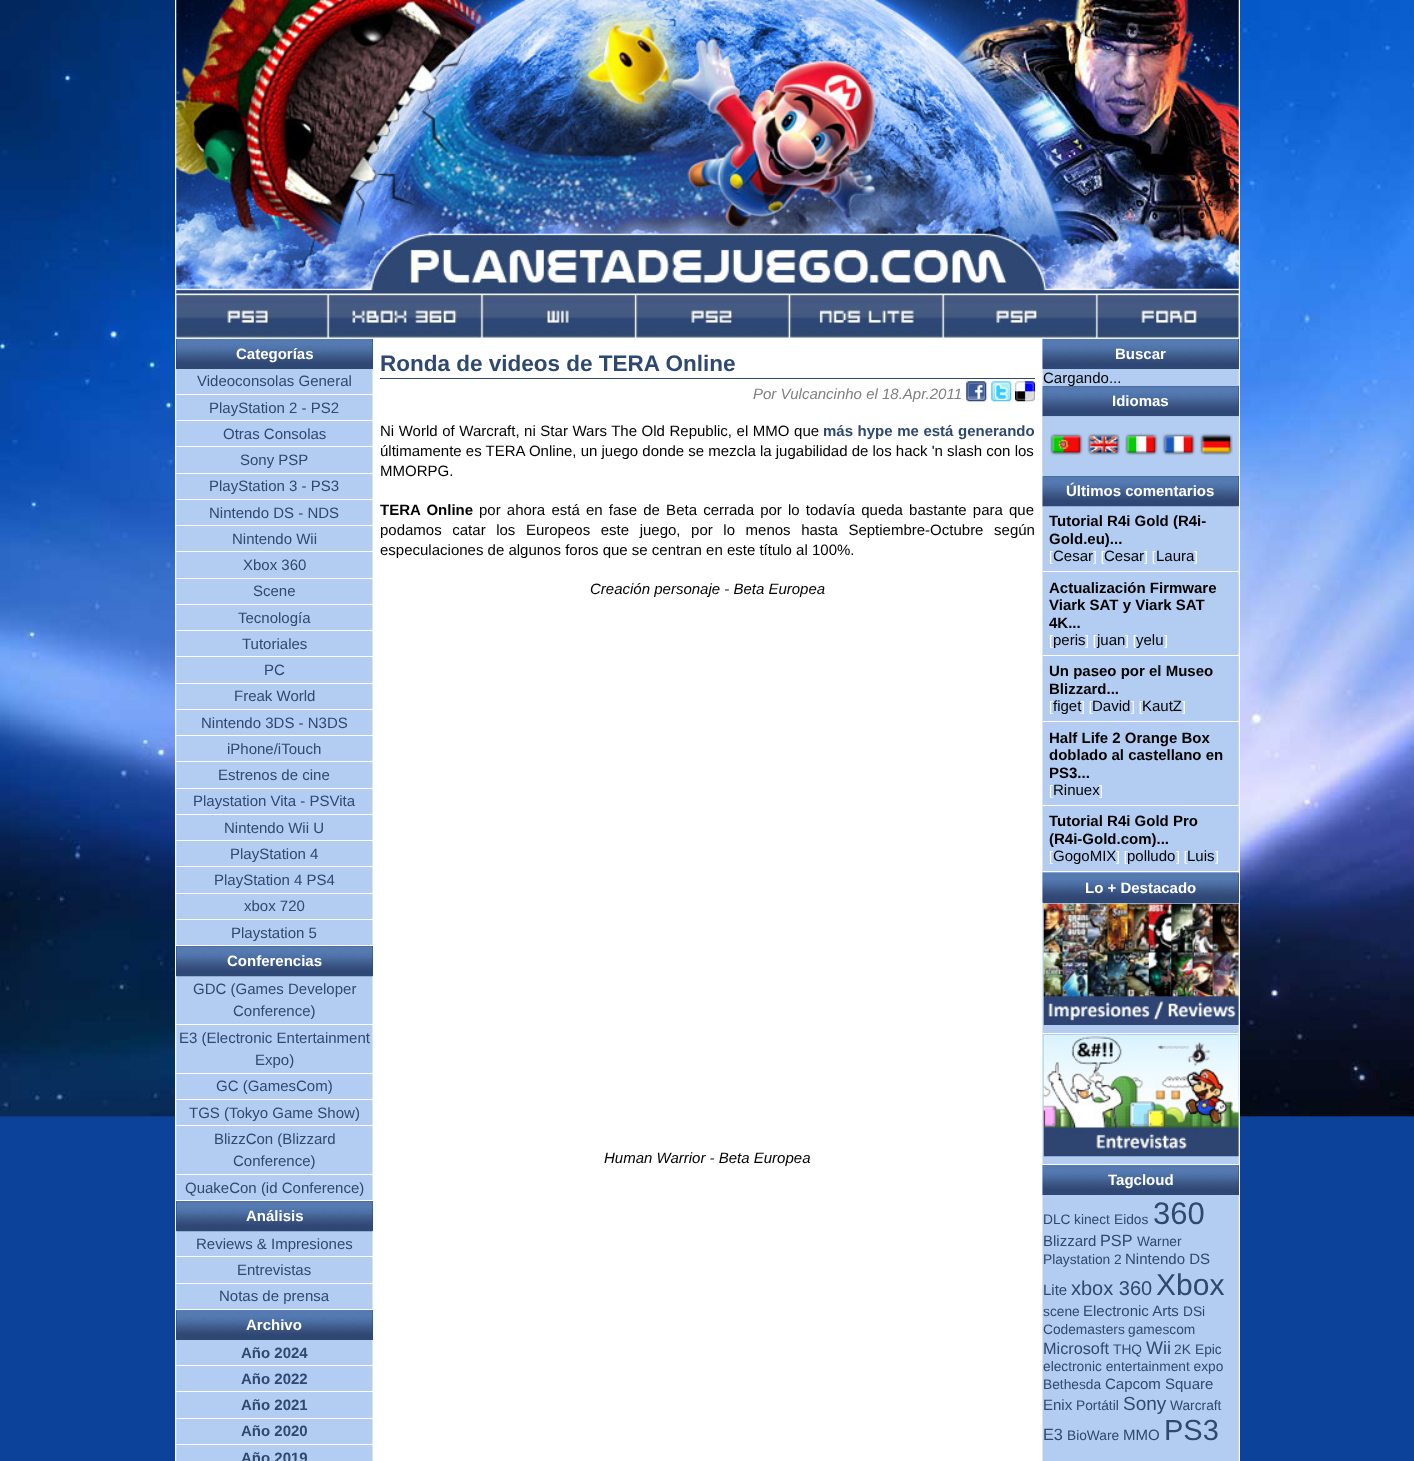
<?xml version="1.0" encoding="UTF-8"?>
<svg xmlns="http://www.w3.org/2000/svg" xmlns:xlink="http://www.w3.org/1999/xlink" width="1414" height="1461">
  <rect width="100%" height="100%" fill="#0d429a" />
  <image x="0" y="0" width="1414" height="1117" xlink:href="image1.png" />
  <rect x="175" width="1065" height="1461" fill="#ffffff" />
  <image x="176" y="0" width="1063" height="294" xlink:href="image2.png" />
  <image x="176" y="338" width="1063" height="1123" xlink:href="image4.png" />
  <image x="176" y="293" width="1063" height="46" xlink:href="image3.png" />
  <rect x="176" y="339" width="197" height="30" fill="#2f4773" />
  <image x="176" y="338" width="197" height="25" xlink:href="image5.png" />
  <rect x="176" y="394" width="197" height="1" fill="#ffffff" />
  <rect x="176" y="420" width="197" height="1" fill="#ffffff" />
  <rect x="176" y="446" width="197" height="1" fill="#ffffff" />
  <rect x="176" y="473" width="197" height="1" fill="#ffffff" />
  <rect x="176" y="499" width="197" height="1" fill="#ffffff" />
  <rect x="176" y="525" width="197" height="1" fill="#ffffff" />
  <rect x="176" y="551" width="197" height="1" fill="#ffffff" />
  <rect x="176" y="578" width="197" height="1" fill="#ffffff" />
  <rect x="176" y="604" width="197" height="1" fill="#ffffff" />
  <rect x="176" y="630" width="197" height="1" fill="#ffffff" />
  <rect x="176" y="656" width="197" height="1" fill="#ffffff" />
  <rect x="176" y="683" width="197" height="1" fill="#ffffff" />
  <rect x="176" y="709" width="197" height="1" fill="#ffffff" />
  <rect x="176" y="735" width="197" height="1" fill="#ffffff" />
  <rect x="176" y="761" width="197" height="1" fill="#ffffff" />
  <rect x="176" y="788" width="197" height="1" fill="#ffffff" />
  <rect x="176" y="814" width="197" height="1" fill="#ffffff" />
  <rect x="176" y="840" width="197" height="1" fill="#ffffff" />
  <rect x="176" y="866" width="197" height="1" fill="#ffffff" />
  <rect x="176" y="893" width="197" height="1" fill="#ffffff" />
  <rect x="176" y="919" width="197" height="1" fill="#ffffff" />
  <rect x="176" y="945" width="197" height="1" fill="#ffffff" />
  <rect x="176" y="946" width="197" height="30" fill="#2f4773" />
  <image x="176" y="946" width="197" height="31" xlink:href="image6.png" />
  <rect x="176" y="1024" width="197" height="1" fill="#ffffff" />
  <rect x="176" y="1073" width="197" height="1" fill="#ffffff" />
  <rect x="176" y="1099" width="197" height="1" fill="#ffffff" />
  <rect x="176" y="1125" width="197" height="1" fill="#ffffff" />
  <rect x="176" y="1174" width="197" height="1" fill="#ffffff" />
  <rect x="176" y="1200" width="197" height="1" fill="#ffffff" />
  <rect x="176" y="1201" width="197" height="30" fill="#2f4773" />
  <image x="176" y="1201" width="197" height="31" xlink:href="image7.png" />
  <rect x="176" y="1256" width="197" height="1" fill="#ffffff" />
  <rect x="176" y="1283" width="197" height="1" fill="#ffffff" />
  <rect x="176" y="1309" width="197" height="1" fill="#ffffff" />
  <rect x="176" y="1310" width="197" height="30" fill="#2f4773" />
  <image x="176" y="1310" width="197" height="24" xlink:href="image8.png" />
  <rect x="176" y="1365" width="197" height="1" fill="#ffffff" />
  <rect x="176" y="1391" width="197" height="1" fill="#ffffff" />
  <rect x="176" y="1418" width="197" height="1" fill="#ffffff" />
  <rect x="176" y="1444" width="197" height="1" fill="#ffffff" />
  <rect x="380" y="378" width="655" height="1" fill="#2f4870" />
  <image x="966" y="381" width="21" height="21" xlink:href="image9.png" />
  <image x="991" y="381" width="21" height="21" xlink:href="image10.png" />
  <image x="1015" y="381" width="20" height="21" xlink:href="image11.png" />
  <rect x="1043" y="339" width="196" height="30" fill="#2f4773" />
  <image x="1042" y="338" width="197" height="31" xlink:href="image12.png" />
  <rect x="1043" y="386" width="196" height="30" fill="#2f4773" />
  <image x="1042" y="386" width="197" height="31" xlink:href="image13.png" />
  <image x="1042" y="416" width="197" height="57" xlink:href="image14.png" />
  <rect x="1043" y="476" width="196" height="30" fill="#2f4773" />
  <image x="1042" y="476" width="197" height="31" xlink:href="image15.png" />
  <rect x="1043" y="571" width="196" height="1" fill="#ffffff" />
  <rect x="1043" y="655" width="196" height="1" fill="#ffffff" />
  <rect x="1043" y="721" width="196" height="1" fill="#ffffff" />
  <rect x="1043" y="805" width="196" height="1" fill="#ffffff" />
  <rect x="1043" y="871" width="196" height="1" fill="#ffffff" />
  <rect x="1043" y="873" width="196" height="30" fill="#2f4773" />
  <image x="1042" y="872" width="197" height="31" xlink:href="image16.png" />
  <rect x="1043" y="1033" width="196" height="1" fill="#ffffff" />
  <image x="1043" y="903" width="196" height="122" xlink:href="image17.png" />
  <rect x="1043" y="1164" width="196" height="1" fill="#ffffff" />
  <image x="1043" y="1035" width="196" height="122" xlink:href="image18.png" />
  <rect x="1238" y="1165" width="1" height="30" fill="#2f4773" />
  <image x="1042" y="1165" width="197" height="30" xlink:href="image19.png" />
  <text x="236" y="359" style="font-family: Liberation Sans; font-size: 15px; font-weight: bold; fill: #ffffff">Categorías</text>
  <text x="197" y="386" style="font-family: Liberation Sans; font-size: 15px; fill: #2f4870">Videoconsolas General</text>
  <text x="209" y="413" style="font-family: Liberation Sans; font-size: 15px; fill: #2f4870">PlayStation 2 - PS2</text>
  <text x="223" y="439" style="font-family: Liberation Sans; font-size: 15px; fill: #2f4870">Otras Consolas</text>
  <text x="240" y="465" style="font-family: Liberation Sans; font-size: 15px; fill: #2f4870">Sony PSP</text>
  <text x="209" y="491" style="font-family: Liberation Sans; font-size: 15px; fill: #2f4870">PlayStation 3 - PS3</text>
  <text x="209" y="518" style="font-family: Liberation Sans; font-size: 15px; fill: #2f4870">Nintendo DS - NDS</text>
  <text x="232" y="544" style="font-family: Liberation Sans; font-size: 15px; fill: #2f4870">Nintendo Wii</text>
  <text x="243" y="570" style="font-family: Liberation Sans; font-size: 15px; fill: #2f4870">Xbox 360</text>
  <text x="253" y="596" style="font-family: Liberation Sans; font-size: 15px; fill: #2f4870">Scene</text>
  <text x="238" y="623" style="font-family: Liberation Sans; font-size: 15px; fill: #2f4870">Tecnología</text>
  <text x="242" y="649" style="font-family: Liberation Sans; font-size: 15px; fill: #2f4870">Tutoriales</text>
  <text x="264" y="675" style="font-family: Liberation Sans; font-size: 15px; fill: #2f4870">PC</text>
  <text x="234" y="701" style="font-family: Liberation Sans; font-size: 15px; fill: #2f4870">Freak World</text>
  <text x="201" y="728" style="font-family: Liberation Sans; font-size: 15px; fill: #2f4870">Nintendo 3DS - N3DS</text>
  <text x="227" y="754" style="font-family: Liberation Sans; font-size: 15px; fill: #2f4870">iPhone/iTouch</text>
  <text x="218" y="780" style="font-family: Liberation Sans; font-size: 15px; fill: #2f4870">Estrenos de cine</text>
  <text x="193" y="806" style="font-family: Liberation Sans; font-size: 15px; fill: #2f4870">Playstation Vita - PSVita</text>
  <text x="224" y="833" style="font-family: Liberation Sans; font-size: 15px; fill: #2f4870">Nintendo Wii U</text>
  <text x="230" y="859" style="font-family: Liberation Sans; font-size: 15px; fill: #2f4870">PlayStation 4</text>
  <text x="214" y="885" style="font-family: Liberation Sans; font-size: 15px; fill: #2f4870">PlayStation 4 PS4</text>
  <text x="244" y="911" style="font-family: Liberation Sans; font-size: 15px; fill: #2f4870">xbox 720</text>
  <text x="231" y="938" style="font-family: Liberation Sans; font-size: 15px; fill: #2f4870">Playstation 5</text>
  <text x="227" y="966" style="font-family: Liberation Sans; font-size: 15px; font-weight: bold; fill: #ffffff">Conferencias</text>
  <text x="193" y="994" style="font-family: Liberation Sans; font-size: 15px; fill: #2f4870">GDC (Games Developer</text>
  <text x="233" y="1016" style="font-family: Liberation Sans; font-size: 15px; fill: #2f4870">Conference)</text>
  <text x="179" y="1043" style="font-family: Liberation Sans; font-size: 15px; fill: #2f4870">E3 (Electronic Entertainment</text>
  <text x="255" y="1065" style="font-family: Liberation Sans; font-size: 15px; fill: #2f4870">Expo)</text>
  <text x="216" y="1091" style="font-family: Liberation Sans; font-size: 15px; fill: #2f4870">GC (GamesCom)</text>
  <text x="189" y="1118" style="font-family: Liberation Sans; font-size: 15px; fill: #2f4870">TGS (Tokyo Game Show)</text>
  <text x="214" y="1144" style="font-family: Liberation Sans; font-size: 15px; fill: #2f4870">BlizzCon (Blizzard</text>
  <text x="233" y="1166" style="font-family: Liberation Sans; font-size: 15px; fill: #2f4870">Conference)</text>
  <text x="185" y="1193" style="font-family: Liberation Sans; font-size: 15px; fill: #2f4870">QuakeCon (id Conference)</text>
  <text x="246" y="1221" style="font-family: Liberation Sans; font-size: 15px; font-weight: bold; fill: #ffffff">Análisis</text>
  <text x="196" y="1249" style="font-family: Liberation Sans; font-size: 15px; fill: #2f4870">Reviews &amp; Impresiones</text>
  <text x="237" y="1275" style="font-family: Liberation Sans; font-size: 15px; fill: #2f4870">Entrevistas</text>
  <text x="219" y="1301" style="font-family: Liberation Sans; font-size: 15px; fill: #2f4870">Notas de prensa</text>
  <text x="246" y="1330" style="font-family: Liberation Sans; font-size: 15px; font-weight: bold; fill: #ffffff">Archivo</text>
  <text x="241" y="1358" style="font-family: Liberation Sans; font-size: 15px; font-weight: bold; fill: #2f4870">Año 2024</text>
  <text x="241" y="1384" style="font-family: Liberation Sans; font-size: 15px; font-weight: bold; fill: #2f4870">Año 2022</text>
  <text x="241" y="1410" style="font-family: Liberation Sans; font-size: 15px; font-weight: bold; fill: #2f4870">Año 2021</text>
  <text x="241" y="1436" style="font-family: Liberation Sans; font-size: 15px; font-weight: bold; fill: #2f4870">Año 2020</text>
  <text x="241" y="1463" style="font-family: Liberation Sans; font-size: 15px; font-weight: bold; fill: #2f4870">Año 2019</text>
  <text x="380" y="371" style="font-family: Liberation Sans; font-size: 22.5px; font-weight: bold; fill: #2f4870">Ronda de videos de TERA Online</text>
  <text x="753" y="399" style="font-family: Liberation Sans; font-size: 15px; font-style: italic; fill: #808080">Por Vulcancinho el 18.Apr.2011</text>
  <text x="380" y="436" word-spacing="0.4" style="font-family: Liberation Sans; font-size: 15px; fill: #000000">Ni World of Warcraft, ni Star Wars The Old Republic, el MMO que</text>
  <text x="823" y="436" word-spacing="0.4" style="font-family: Liberation Sans; font-size: 15px; font-weight: bold; fill: #2f4870">más hype me está generando</text>
  <text x="380" y="456" style="font-family: Liberation Sans; font-size: 15px; fill: #000000">últimamente es TERA Online, un juego donde se mezcla la jugabilidad de los hack 'n slash con los</text>
  <text x="380" y="476" style="font-family: Liberation Sans; font-size: 15px; fill: #000000">MMORPG.</text>
  <text x="380" y="515" word-spacing="2" style="font-family: Liberation Sans; font-size: 15px; font-weight: bold; fill: #000000">TERA Online</text>
  <text x="479" y="515" word-spacing="2" style="font-family: Liberation Sans; font-size: 15px; fill: #000000">por ahora está en fase de Beta cerrada por lo todavía queda bastante para que</text>
  <text x="380" y="535" word-spacing="6.4" style="font-family: Liberation Sans; font-size: 15px; fill: #000000">podamos catar los Europeos este juego, por lo menos hasta Septiembre-Octubre según</text>
  <text x="380" y="555" style="font-family: Liberation Sans; font-size: 15px; fill: #000000">especulaciones de algunos foros que se centran en este título al 100%.</text>
  <text x="590" y="594" style="font-family: Liberation Sans; font-size: 15px; font-style: italic; fill: #000000">Creación personaje - Beta Europea</text>
  <text x="604" y="1163" style="font-family: Liberation Sans; font-size: 15px; font-style: italic; fill: #000000">Human Warrior - Beta Europea</text>
  <text x="1115" y="359" style="font-family: Liberation Sans; font-size: 15px; font-weight: bold; fill: #ffffff">Buscar</text>
  <text x="1043" y="383" style="font-family: Liberation Sans; font-size: 15px; fill: #000000">Cargando...</text>
  <text x="1112" y="406" style="font-family: Liberation Sans; font-size: 15px; font-weight: bold; fill: #ffffff">Idiomas</text>
  <text x="1066" y="496" style="font-family: Liberation Sans; font-size: 15px; font-weight: bold; fill: #ffffff">Últimos comentarios</text>
  <text x="1049" y="526" style="font-family: Liberation Sans; font-size: 15px; font-weight: bold; fill: #000000">Tutorial R4i Gold (R4i-</text>
  <text x="1049" y="544" style="font-family: Liberation Sans; font-size: 15px; font-weight: bold; fill: #000000">Gold.eu)...</text>
  <text x="1049" y="561" style="font-family: Liberation Sans; font-size: 13.75px; fill: #ffffff">[</text>
  <text x="1053" y="561" style="font-family: Liberation Sans; font-size: 15px; fill: #000000">Cesar</text>
  <text x="1093" y="561" style="font-family: Liberation Sans; font-size: 13.75px; fill: #ffffff">] [</text>
  <text x="1104" y="561" style="font-family: Liberation Sans; font-size: 15px; fill: #000000">Cesar</text>
  <text x="1144" y="561" style="font-family: Liberation Sans; font-size: 13.75px; fill: #ffffff">] [</text>
  <text x="1156" y="561" style="font-family: Liberation Sans; font-size: 15px; fill: #000000">Laura</text>
  <text x="1194" y="561" style="font-family: Liberation Sans; font-size: 13.75px; fill: #ffffff">]</text>
  <text x="1049" y="593" style="font-family: Liberation Sans; font-size: 15px; font-weight: bold; fill: #000000">Actualización Firmware</text>
  <text x="1049" y="610" style="font-family: Liberation Sans; font-size: 15px; font-weight: bold; fill: #000000">Viark SAT y Viark SAT</text>
  <text x="1049" y="628" style="font-family: Liberation Sans; font-size: 15px; font-weight: bold; fill: #000000">4K...</text>
  <text x="1049" y="645" style="font-family: Liberation Sans; font-size: 13.75px; fill: #ffffff">[</text>
  <text x="1053" y="645" style="font-family: Liberation Sans; font-size: 15px; fill: #000000">peris</text>
  <text x="1085" y="645" style="font-family: Liberation Sans; font-size: 13.75px; fill: #ffffff">] [</text>
  <text x="1097" y="645" style="font-family: Liberation Sans; font-size: 15px; fill: #000000">juan</text>
  <text x="1125" y="645" style="font-family: Liberation Sans; font-size: 13.75px; fill: #ffffff">] [</text>
  <text x="1136" y="645" style="font-family: Liberation Sans; font-size: 15px; fill: #000000">yelu</text>
  <text x="1164" y="645" style="font-family: Liberation Sans; font-size: 13.75px; fill: #ffffff">]</text>
  <text x="1049" y="676" style="font-family: Liberation Sans; font-size: 15px; font-weight: bold; fill: #000000">Un paseo por el Museo</text>
  <text x="1049" y="694" style="font-family: Liberation Sans; font-size: 15px; font-weight: bold; fill: #000000">Blizzard...</text>
  <text x="1049" y="711" style="font-family: Liberation Sans; font-size: 13.75px; fill: #ffffff">[</text>
  <text x="1053" y="711" style="font-family: Liberation Sans; font-size: 15px; fill: #000000">figet</text>
  <text x="1081" y="711" style="font-family: Liberation Sans; font-size: 13.75px; fill: #ffffff">] [</text>
  <text x="1092" y="711" style="font-family: Liberation Sans; font-size: 15px; fill: #000000">David</text>
  <text x="1131" y="711" style="font-family: Liberation Sans; font-size: 13.75px; fill: #ffffff">] [</text>
  <text x="1142" y="711" style="font-family: Liberation Sans; font-size: 15px; fill: #000000">KautZ</text>
  <text x="1182" y="711" style="font-family: Liberation Sans; font-size: 13.75px; fill: #ffffff">]</text>
  <text x="1049" y="743" style="font-family: Liberation Sans; font-size: 15px; font-weight: bold; fill: #000000">Half Life 2 Orange Box</text>
  <text x="1049" y="760" style="font-family: Liberation Sans; font-size: 15px; font-weight: bold; fill: #000000">doblado al castellano en</text>
  <text x="1049" y="778" style="font-family: Liberation Sans; font-size: 15px; font-weight: bold; fill: #000000">PS3...</text>
  <text x="1049" y="795" style="font-family: Liberation Sans; font-size: 13.75px; fill: #ffffff">[</text>
  <text x="1053" y="795" style="font-family: Liberation Sans; font-size: 15px; fill: #000000">Rinuex</text>
  <text x="1099" y="795" style="font-family: Liberation Sans; font-size: 13.75px; fill: #ffffff">]</text>
  <text x="1049" y="826" style="font-family: Liberation Sans; font-size: 15px; font-weight: bold; fill: #000000">Tutorial R4i Gold Pro</text>
  <text x="1049" y="844" style="font-family: Liberation Sans; font-size: 15px; font-weight: bold; fill: #000000">(R4i-Gold.com)...</text>
  <text x="1049" y="861" style="font-family: Liberation Sans; font-size: 13.75px; fill: #ffffff">[</text>
  <text x="1053" y="861" style="font-family: Liberation Sans; font-size: 15px; fill: #000000">GogoMIX</text>
  <text x="1116" y="861" style="font-family: Liberation Sans; font-size: 13.75px; fill: #ffffff">] [</text>
  <text x="1127" y="861" style="font-family: Liberation Sans; font-size: 15px; fill: #000000">polludo</text>
  <text x="1176" y="861" style="font-family: Liberation Sans; font-size: 13.75px; fill: #ffffff">] [</text>
  <text x="1187" y="861" style="font-family: Liberation Sans; font-size: 15px; fill: #000000">Luis</text>
  <text x="1215" y="861" style="font-family: Liberation Sans; font-size: 13.75px; fill: #ffffff">]</text>
  <text x="1085" y="893" style="font-family: Liberation Sans; font-size: 15px; font-weight: bold; fill: #ffffff">Lo + Destacado</text>
  <text x="1108" y="1185" style="font-family: Liberation Sans; font-size: 15px; font-weight: bold; fill: #ffffff">Tagcloud</text>
  <text x="1043" y="1224" style="font-family: Liberation Sans; font-size: 13.75px; fill: #2f4870">DLC</text>
  <text x="1074" y="1224" style="font-family: Liberation Sans; font-size: 13.75px; fill: #2f4870">kinect</text>
  <text x="1114" y="1224" style="font-family: Liberation Sans; font-size: 13.75px; fill: #2f4870">Eidos</text>
  <text x="1153" y="1224" style="font-family: Liberation Sans; font-size: 31px; fill: #2f4870">360</text>
  <text x="1043" y="1246" style="font-family: Liberation Sans; font-size: 15px; fill: #2f4870">Blizzard</text>
  <text x="1100" y="1246" style="font-family: Liberation Sans; font-size: 16.25px; fill: #2f4870">PSP</text>
  <text x="1137" y="1246" style="font-family: Liberation Sans; font-size: 13.75px; fill: #2f4870">Warner</text>
  <text x="1043" y="1264" style="font-family: Liberation Sans; font-size: 13.75px; fill: #2f4870">Playstation 2</text>
  <text x="1125" y="1264" style="font-family: Liberation Sans; font-size: 15px; fill: #2f4870">Nintendo DS</text>
  <text x="1043" y="1295" style="font-family: Liberation Sans; font-size: 15px; fill: #2f4870">Lite</text>
  <text x="1071" y="1295" style="font-family: Liberation Sans; font-size: 20px; fill: #2f4870">xbox 360</text>
  <text x="1156" y="1295" style="font-family: Liberation Sans; font-size: 30px; fill: #2f4870">Xbox</text>
  <text x="1043" y="1316" style="font-family: Liberation Sans; font-size: 13.75px; fill: #2f4870">scene</text>
  <text x="1083" y="1316" style="font-family: Liberation Sans; font-size: 15px; fill: #2f4870">Electronic Arts</text>
  <text x="1183" y="1316" style="font-family: Liberation Sans; font-size: 13.75px; fill: #2f4870">DSi</text>
  <text x="1043" y="1334" style="font-family: Liberation Sans; font-size: 13.75px; fill: #2f4870">Codemasters</text>
  <text x="1128" y="1334" style="font-family: Liberation Sans; font-size: 13.75px; fill: #2f4870">gamescom</text>
  <text x="1043" y="1354" style="font-family: Liberation Sans; font-size: 16.25px; fill: #2f4870">Microsoft</text>
  <text x="1113" y="1354" style="font-family: Liberation Sans; font-size: 13.75px; fill: #2f4870">THQ</text>
  <text x="1146" y="1354" style="font-family: Liberation Sans; font-size: 18px; fill: #2f4870">Wii</text>
  <text x="1174" y="1354" style="font-family: Liberation Sans; font-size: 13.75px; fill: #2f4870">2K</text>
  <text x="1195" y="1354" style="font-family: Liberation Sans; font-size: 13.75px; fill: #2f4870">Epic</text>
  <text x="1043" y="1371" style="font-family: Liberation Sans; font-size: 13.75px; fill: #2f4870">electronic entertainment expo</text>
  <text x="1043" y="1389" style="font-family: Liberation Sans; font-size: 13.75px; fill: #2f4870">Bethesda</text>
  <text x="1105" y="1389" style="font-family: Liberation Sans; font-size: 15px; fill: #2f4870">Capcom Square</text>
  <text x="1043" y="1410" style="font-family: Liberation Sans; font-size: 15px; fill: #2f4870">Enix</text>
  <text x="1076" y="1410" style="font-family: Liberation Sans; font-size: 13.75px; fill: #2f4870">Portátil</text>
  <text x="1123" y="1410" style="font-family: Liberation Sans; font-size: 19px; fill: #2f4870">Sony</text>
  <text x="1170" y="1410" style="font-family: Liberation Sans; font-size: 13.75px; fill: #2f4870">Warcraft</text>
  <text x="1043" y="1440" style="font-family: Liberation Sans; font-size: 16.25px; fill: #2f4870">E3</text>
  <text x="1067" y="1440" style="font-family: Liberation Sans; font-size: 13.75px; fill: #2f4870">BioWare</text>
  <text x="1123" y="1440" style="font-family: Liberation Sans; font-size: 15px; fill: #2f4870">MMO</text>
  <text x="1164" y="1440" style="font-family: Liberation Sans; font-size: 29px; fill: #2f4870">PS3</text>
</svg>
